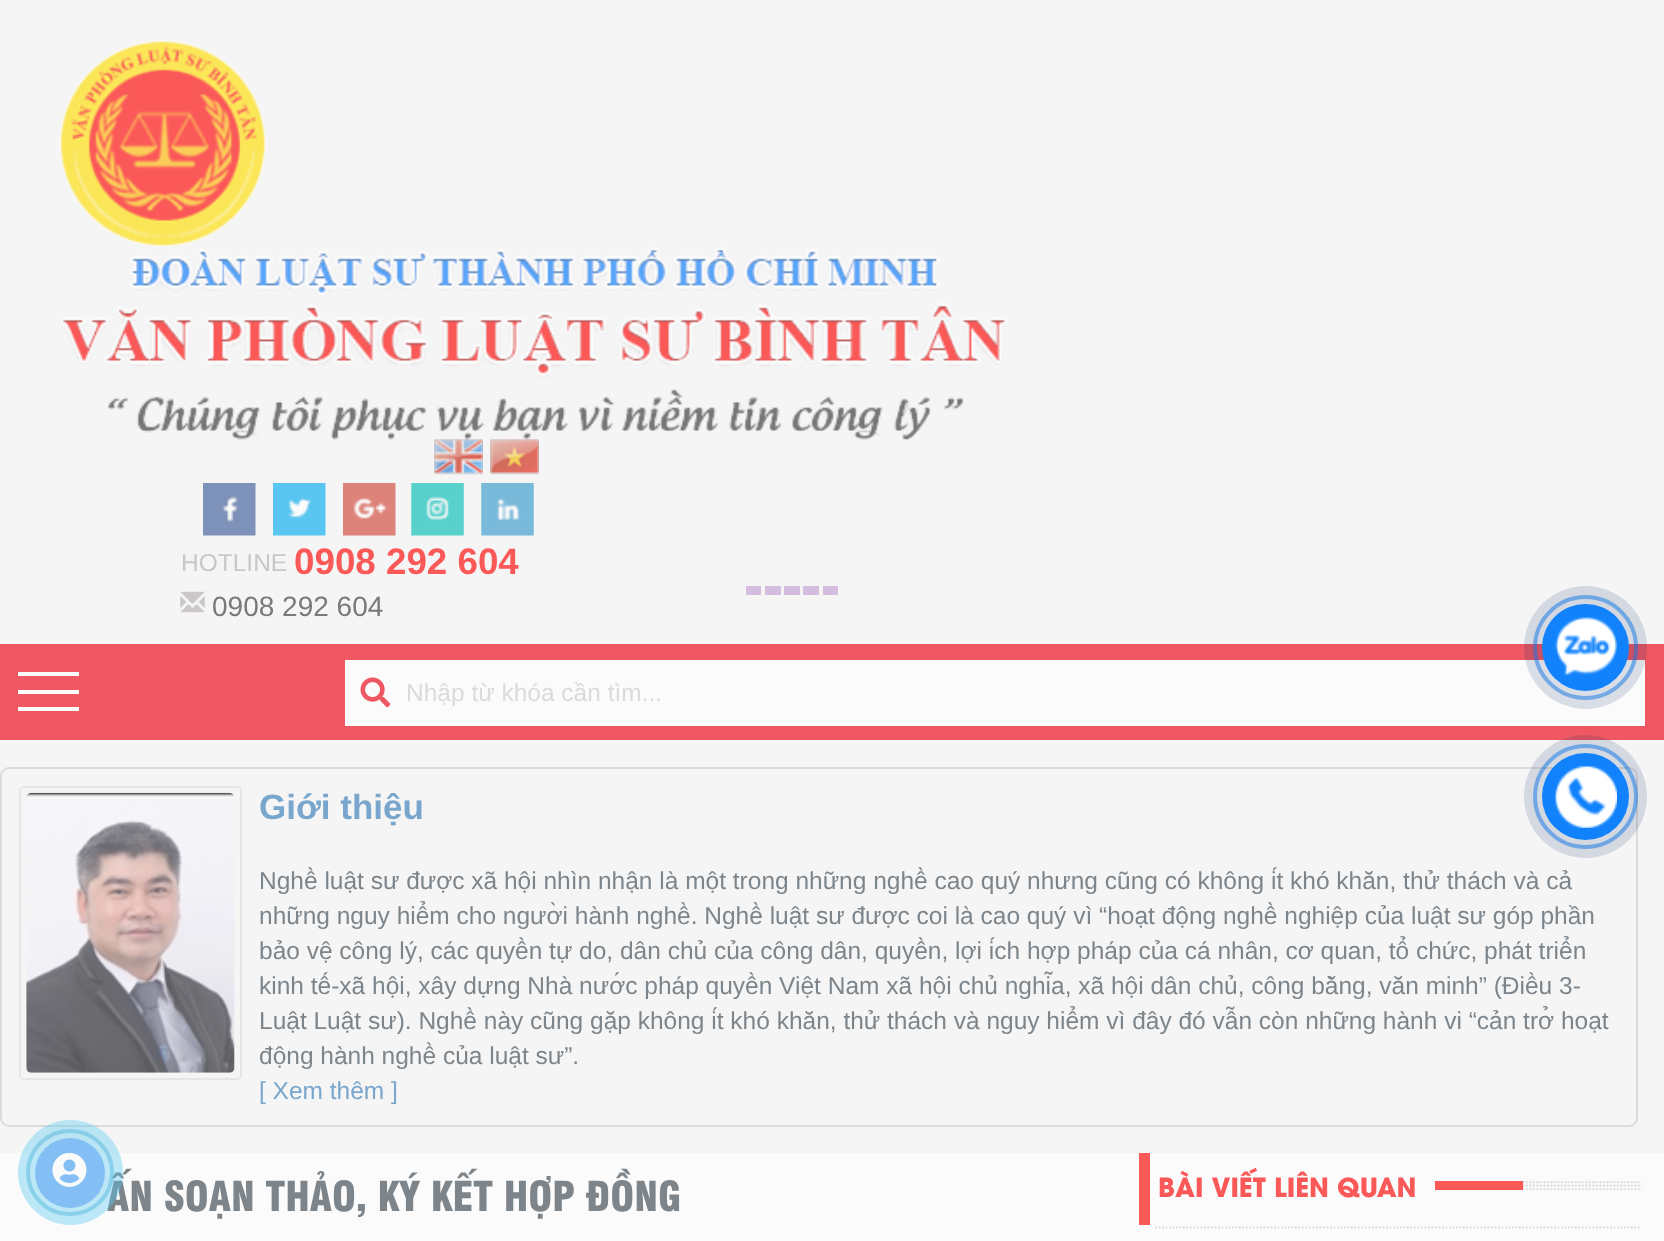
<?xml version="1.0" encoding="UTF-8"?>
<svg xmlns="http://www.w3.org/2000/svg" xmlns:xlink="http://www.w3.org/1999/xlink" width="1664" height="1241">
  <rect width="100%" height="100%" fill="#f5f5f5" />
  <image x="59" y="40" width="207" height="207" xlink:href="image1.png" />
  <image x="61" y="247" width="947" height="193" xlink:href="image2.png" />
  <image x="434" y="439" width="49" height="36" xlink:href="image3.png" />
  <image x="490" y="439" width="49" height="36" xlink:href="image4.png" />
  <image x="203" y="483" width="53" height="53" xlink:href="image5.png" />
  <image x="273" y="483" width="53" height="53" xlink:href="image6.png" />
  <image x="343" y="483" width="53" height="53" xlink:href="image7.png" />
  <image x="411" y="483" width="53" height="53" xlink:href="image8.png" />
  <image x="481" y="483" width="53" height="53" xlink:href="image9.png" />
  <image x="180" y="591" width="25" height="22" xlink:href="image10.png" />
  <rect y="644" width="1664" height="96" fill="#ef5862" />
  <rect x="18" y="672" width="61" height="4" fill="#fbfbfb" />
  <rect x="18" y="690" width="61" height="4" fill="#fbfbfb" />
  <rect x="18" y="707" width="61" height="4" fill="#fbfbfb" />
  <rect x="345" y="660" width="1300" height="66" fill="#fbfbfb" />
  <image x="360" y="677" width="31" height="31" xlink:href="image11.png" />
  <circle cx="1585.5" cy="647.5" r="50.5" fill="none" stroke="#1182fc" stroke-opacity="0.5" stroke-width="4" />
  <circle cx="1585.5" cy="647.5" r="61.5" fill="#072967" fill-opacity="0.14" />
  <circle cx="1585.5" cy="647.5" r="43.5" fill="#1182fc" />
  <image x="1555" y="617" width="62" height="59" xlink:href="image12.png" />
  <rect x="1" y="768" width="1636" height="358" rx="8" fill="none" stroke="#dbdbdb" stroke-width="2" />
  <circle cx="1585.5" cy="796.5" r="50.5" fill="none" stroke="#1182fc" stroke-opacity="0.5" stroke-width="4" />
  <circle cx="1585.5" cy="796.5" r="61.5" fill="#072967" fill-opacity="0.14" />
  <circle cx="1585.5" cy="796.5" r="43.5" fill="#1182fc" />
  <image x="1555" y="766" width="62" height="62" xlink:href="image13.png" />
  <rect x="20" y="787" width="221" height="292" rx="4" fill="none" stroke="#e6e6e6" stroke-width="2" />
  <image x="26" y="792" width="209" height="281" xlink:href="image14.png" />
  <rect y="1153" width="1664" height="88" fill="#fbfbfb" />
  <rect x="1139" y="1153" width="11" height="72" fill="#fb5858" />
  <image x="1523" y="1181" width="119" height="9" xlink:href="image16.png" />
  <rect x="1435" y="1181" width="88" height="9" fill="#fb5858" />
  <path d="M 1155 1227.5 h 486.5" fill="none" stroke="#dbdbdb" stroke-width="1.8" stroke-dasharray="1.75 1.75" />
  <rect x="746" y="586" width="15" height="9" fill="#d4bdde" />
  <rect x="765" y="586" width="16" height="9" fill="#d4bdde" />
  <rect x="784" y="586" width="16" height="9" fill="#d4bdde" />
  <rect x="803" y="586" width="16" height="9" fill="#d4bdde" />
  <rect x="823" y="586" width="15" height="9" fill="#d4bdde" />
  <text x="181" y="571" style="font-family: Liberation Sans; font-size: 24.5px; fill: #cbc7c7">HOTLINE</text>
  <text x="294" y="574" style="font-family: Liberation Sans; font-size: 36.75px; font-weight: bold; fill: #fb5858">0908 292 604</text>
  <text x="212" y="616" style="font-family: Liberation Sans; font-size: 28px; fill: #797979">0908 292 604</text>
  <text x="406" y="701" style="font-family: Liberation Sans; font-size: 24.5px; fill: #dbdbdb">Nhập từ khóa cần tìm...</text>
  <text x="259" y="819" style="font-family: Liberation Sans; font-size: 35px; font-weight: bold; fill: #79a6cd">Giới thiệu</text>
  <text x="259" y="889" style="font-family: Liberation Sans; font-size: 24.5px; fill: #7d858b">Nghề luật sư được xã hội nhìn nhận là một trong những nghề cao quý nhưng cũng có không ít khó khăn, thử thách và cả</text>
  <text x="259" y="924" style="font-family: Liberation Sans; font-size: 24.5px; fill: #7d858b">những nguy hiểm cho người hành nghề. Nghề luật sư được coi là cao quý vì “hoạt động nghề nghiệp của luật sư góp phần</text>
  <text x="259" y="959" style="font-family: Liberation Sans; font-size: 24.5px; fill: #7d858b">bảo vệ công lý, các quyền tự do, dân chủ của công dân, quyền, lợi ích hợp pháp của cá nhân, cơ quan, tổ chức, phát triển</text>
  <text x="259" y="994" style="font-family: Liberation Sans; font-size: 24.5px; fill: #7d858b">kinh tế-xã hội, xây dựng Nhà nước pháp quyền Việt Nam xã hội chủ nghĩa, xã hội dân chủ, công bằng, văn minh” (Điều 3-</text>
  <text x="259" y="1029" style="font-family: Liberation Sans; font-size: 24.5px; fill: #7d858b">Luật Luật sư). Nghề này cũng gặp không ít khó khăn, thử thách và nguy hiểm vì đây đó vẫn còn những hành vi “cản trở hoạt</text>
  <text x="259" y="1064" style="font-family: Liberation Sans; font-size: 24.5px; fill: #7d858b">động hành nghề của luật sư”.</text>
  <text x="259" y="1099" style="font-family: Liberation Sans; font-size: 24.5px; fill: #79a6cd">[ Xem thêm ]</text>
  <text x="107" y="1211" style="font-family: 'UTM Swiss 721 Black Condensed'; font-size: 40.25px; font-weight: 900; fill: #7d858b">ẤN SOẠN THẢO, KÝ KẾT HỢP ĐỒNG</text>
  <rect x="28" y="1131" width="84" height="83" rx="41.5" fill="none" stroke="#58b0cf" stroke-opacity="0.5" stroke-width="4" />
  <circle cx="70.5" cy="1172.5" r="52.5" fill="#58c8f3" fill-opacity="0.38" />
  <circle cx="70" cy="1173" r="35" fill="#83bff4" />
  <image x="52" y="1152" width="35" height="35" xlink:href="image15.png" />
  <text x="1158" y="1197" style="font-family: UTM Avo; font-size: 26.25px; font-weight: bold; fill: #fb5858">BÀI VIẾT LIÊN QUAN</text>
</svg>
